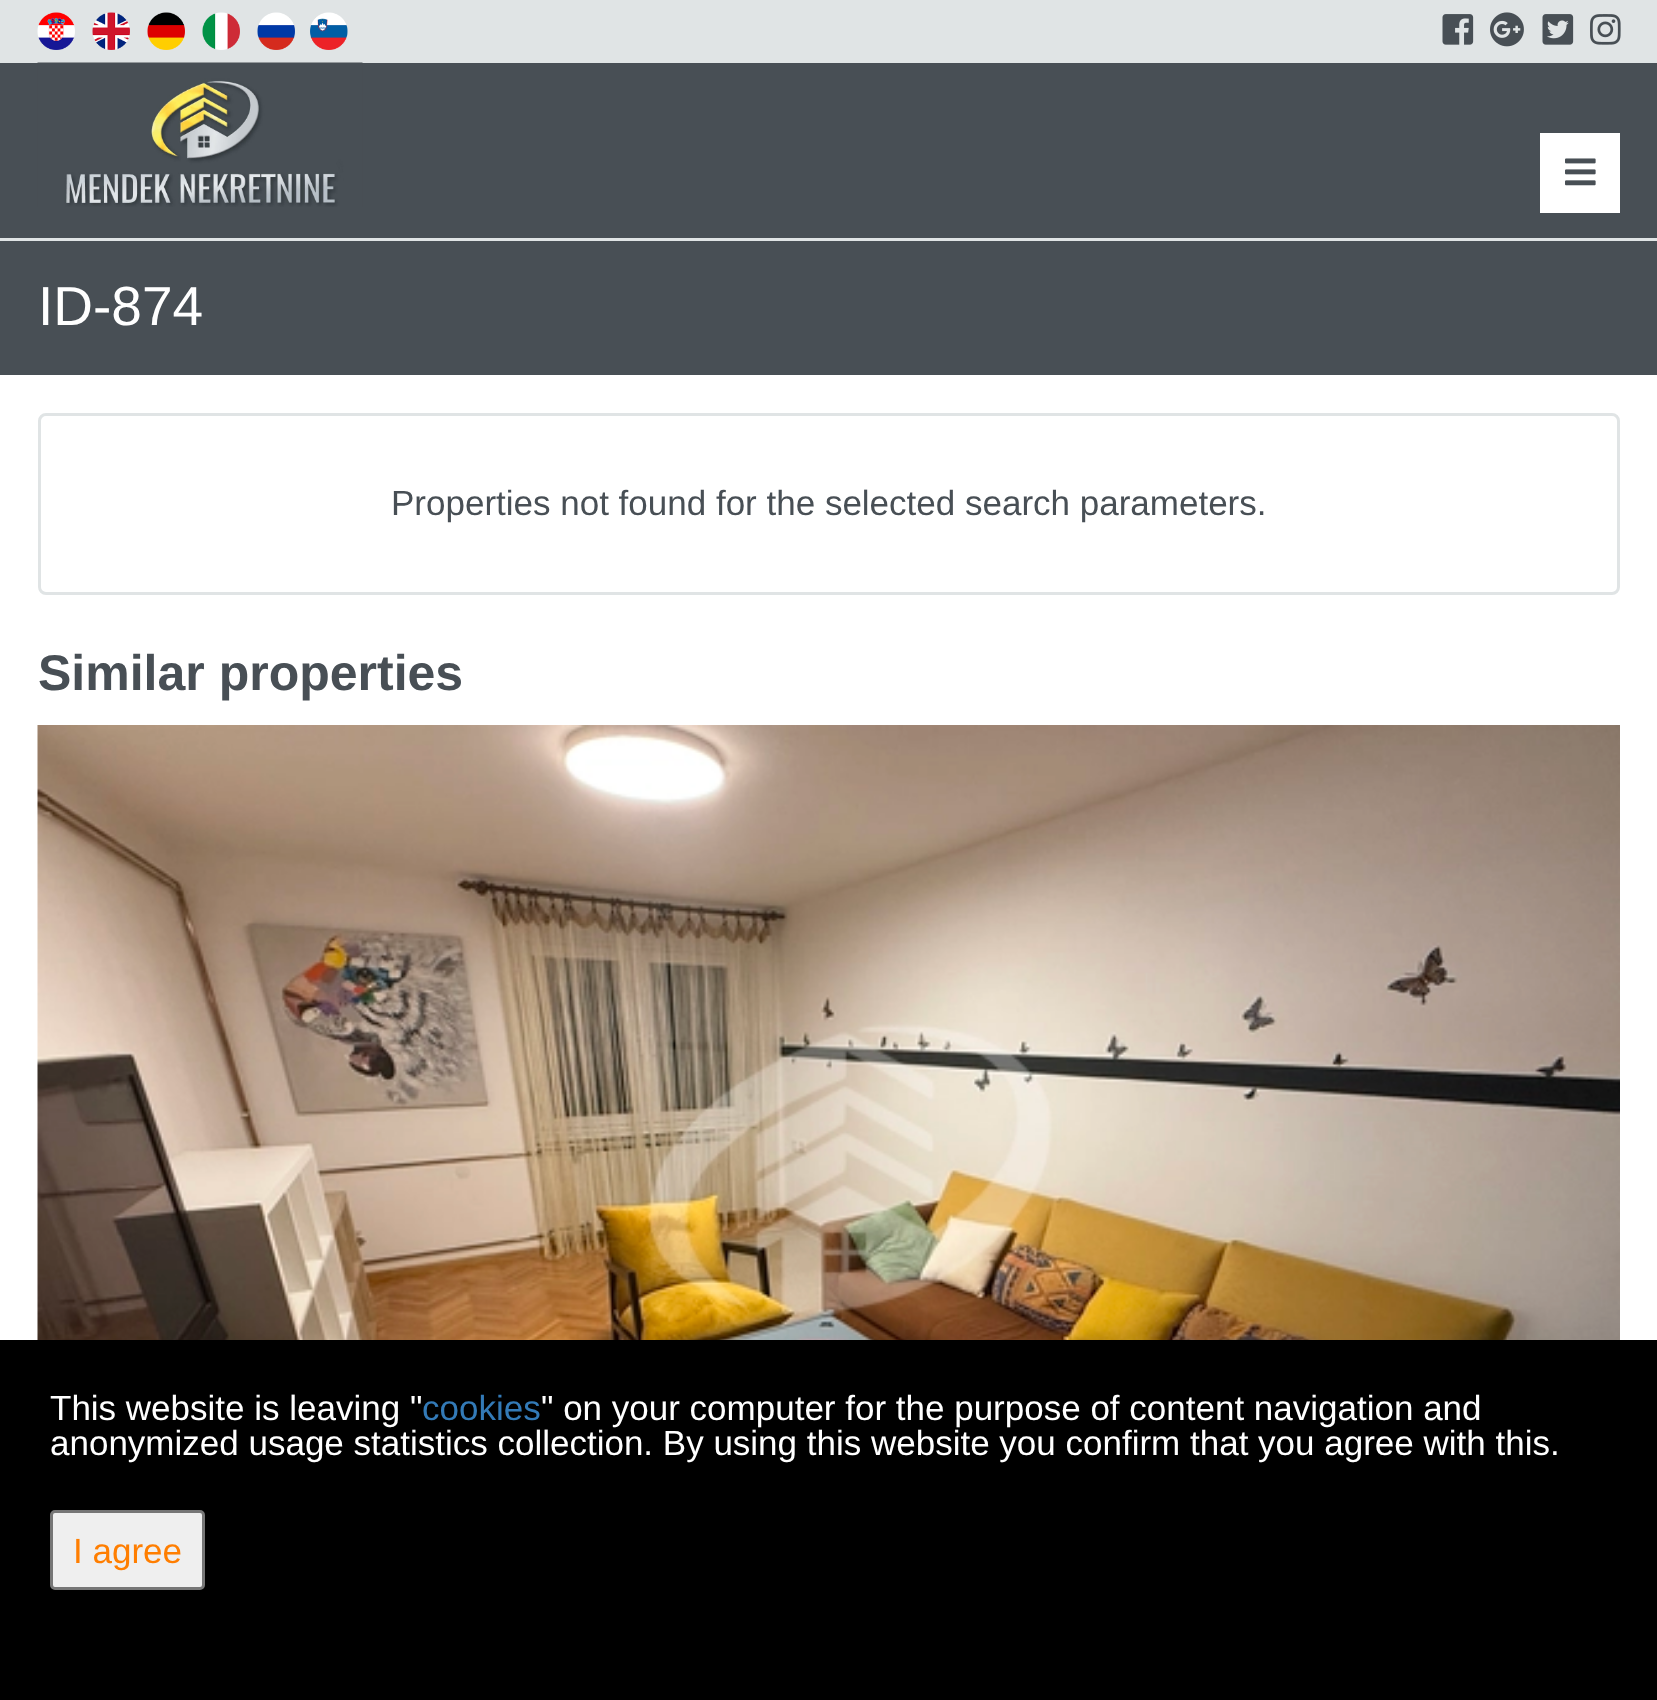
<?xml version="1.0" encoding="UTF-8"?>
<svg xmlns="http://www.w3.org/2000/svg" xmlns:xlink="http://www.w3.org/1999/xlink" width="1657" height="1700">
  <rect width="100%" height="100%" fill="#ffffff" />
  <rect width="1657" height="63" fill="#e0e4e5" />
  <image x="37" y="12" width="38" height="38" xlink:href="image1.png" />
  <image x="92" y="12" width="38" height="38" xlink:href="image2.png" />
  <image x="147" y="12" width="38" height="38" xlink:href="image3.png" />
  <image x="202" y="12" width="38" height="38" xlink:href="image4.png" />
  <image x="257" y="12" width="38" height="38" xlink:href="image5.png" />
  <image x="310" y="12" width="38" height="38" xlink:href="image6.png" />
  <image x="1442" y="14" width="32" height="31" xlink:href="image7.png" />
  <image x="1490" y="12" width="34" height="35" xlink:href="image8.png" />
  <image x="1542" y="14" width="32" height="31" xlink:href="image9.png" />
  <image x="1590" y="14" width="31" height="31" xlink:href="image10.png" />
  <rect y="63" width="1657" height="175" fill="#484f55" />
  <image x="37" y="62" width="326" height="145" xlink:href="image11.png" />
  <rect x="1540" y="133" width="80" height="80" fill="#ffffff" />
  <image x="1565" y="158" width="31" height="28" xlink:href="image12.png" />
  <rect y="241" width="1657" height="134" fill="#484f55" />
  <rect y="238" width="1657" height="3" fill="#e0e4e5" />
  <rect x="39.5" y="414.5" width="1579" height="179" rx="6.5" fill="none" stroke="#e0e4e5" stroke-width="3" />
  <image x="37" y="725" width="1583" height="615" xlink:href="image13.png" />
  <rect y="1340" width="1657" height="360" fill="#000000" />
  <rect x="51.5" y="1511.5" width="152" height="77" rx="3.5" fill="#efefef" stroke="#767676" stroke-width="3" />
  <text x="38" y="325" style="font-family: Liberation Sans; font-size: 55px; fill: #ffffff">ID-874</text>
  <text x="391" y="515" style="font-family: Liberation Sans; font-size: 35px; fill: #484f55">Properties not found for the selected search parameters.</text>
  <text x="38" y="690" style="font-family: Liberation Sans; font-size: 50px; font-weight: bold; fill: #484f55">Similar properties</text>
  <text x="50" y="1420" style="font-family: Liberation Sans; font-size: 35px; fill: #ffffff">This website is leaving "</text>
  <text x="422" y="1420" style="font-family: Liberation Sans; font-size: 35px; fill: #337ab7">cookies</text>
  <text x="541" y="1420" style="font-family: Liberation Sans; font-size: 35px; fill: #ffffff">" on your computer for the purpose of content navigation and</text>
  <text x="50" y="1455" style="font-family: Liberation Sans; font-size: 35px; fill: #ffffff">anonymized usage statistics collection. By using this website you confirm that you agree with this.</text>
  <text x="73" y="1563" style="font-family: Liberation Sans; font-size: 35px; fill: #ff7e00">I agree</text>
</svg>
